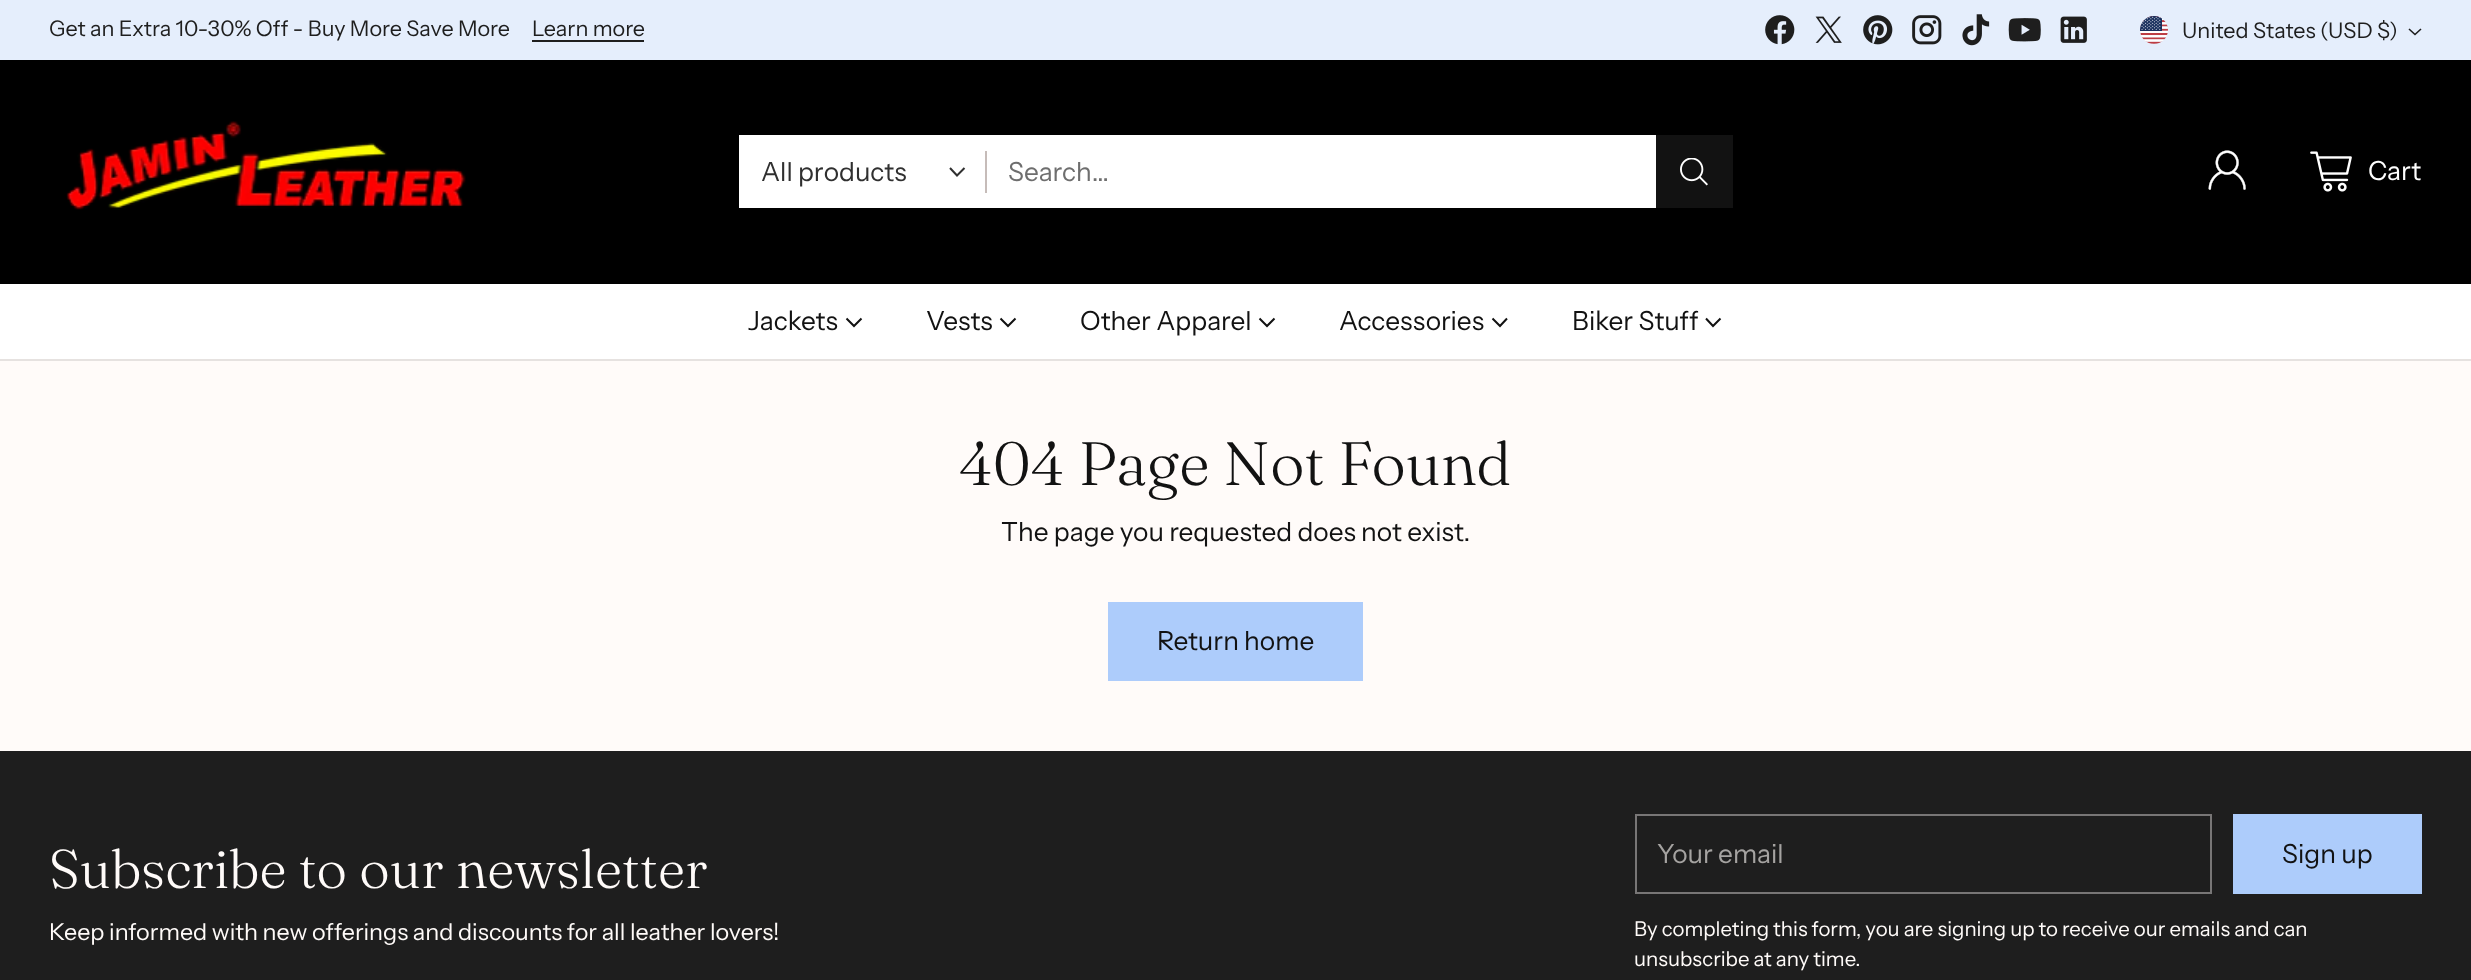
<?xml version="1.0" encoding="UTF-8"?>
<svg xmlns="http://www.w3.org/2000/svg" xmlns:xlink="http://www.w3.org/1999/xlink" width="2471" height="980">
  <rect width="100%" height="100%" fill="#fffbf9" />
  <rect width="2471" height="60" fill="#e5eefc" />
  <rect x="532" y="40" width="112" height="2" fill="#1e1e1e" />
  <image x="1765" y="15" width="30" height="30" xlink:href="image1.png" />
  <image x="1815" y="16" width="27" height="27" xlink:href="image2.png" />
  <image x="1863" y="15" width="30" height="30" xlink:href="image3.png" />
  <image x="1912" y="15" width="30" height="30" xlink:href="image4.png" />
  <image x="1962" y="14" width="28" height="32" xlink:href="image5.png" />
  <image x="2008" y="18" width="33" height="24" xlink:href="image6.png" />
  <image x="2060" y="16" width="27" height="27" xlink:href="image7.png" />
  <image x="2140" y="16" width="28" height="28" xlink:href="image8.png" />
  <path d="M 2409 29 l 6 5.5 l 6 -5.5" fill="none" stroke="#1e1e1e" stroke-width="1.6" />
  <rect x="-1" y="283" width="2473" height="77" fill="none" stroke="#e6e2e0" stroke-width="2" />
  <rect y="60" width="2471" height="224" fill="#000000" />
  <image x="66" y="121" width="400" height="89" xlink:href="image9.png" />
  <rect x="740" y="136" width="992" height="71" fill="none" stroke="#ffffff" stroke-width="2" />
  <rect x="741" y="137" width="915" height="69" fill="#ffffff" />
  <path d="M 950 168 l 7 7.5 l 7.5 -7.5" fill="none" stroke="#303030" stroke-width="2" />
  <rect x="985" y="151" width="2" height="42" fill="#c6bcb9" />
  <rect x="1656" y="135" width="77" height="73" fill="#121212" />
  <image x="1680" y="158" width="28" height="28" xlink:href="image10.png" />
  <image x="2208" y="150" width="38" height="40" xlink:href="image11.png" />
  <image x="2310" y="151" width="42" height="41" xlink:href="image12.png" />
  <rect y="284" width="2471" height="75" fill="#ffffff" />
  <path d="M 846.5 318.5 l 7.5 7.5 l 7.5 -7.5" fill="none" stroke="#121212" stroke-width="2" />
  <path d="M 1000.5 318.5 l 7.5 7.5 l 7.5 -7.5" fill="none" stroke="#121212" stroke-width="2" />
  <path d="M 1259.5 318.5 l 7.5 7.5 l 7.5 -7.5" fill="none" stroke="#121212" stroke-width="2" />
  <path d="M 1492.5 318.5 l 7.5 7.5 l 7 -7.5" fill="none" stroke="#121212" stroke-width="2" />
  <path d="M 1706 318.5 l 7 7.5 l 7.5 -7.5" fill="none" stroke="#121212" stroke-width="2" />
  <rect x="1108" y="602" width="255" height="79" fill="#adccfb" />
  <rect y="751" width="2471" height="229" fill="#1e1e1e" />
  <rect x="1636" y="815" width="575" height="78" fill="none" stroke="#787676" stroke-width="2" />
  <rect x="2233" y="814" width="189" height="80" fill="#adccfb" />
  <text x="49" y="36" style="font-family: Instrument Sans; font-size: 21.6px; fill: #1e1e1e">Get an Extra 10-30% Off - Buy More Save More</text>
  <text x="532" y="36" style="font-family: Instrument Sans; font-size: 21.6px; fill: #1e1e1e">Learn more</text>
  <text x="2182" y="38" style="font-family: Instrument Sans; font-size: 21.6px; fill: #1e1e1e">United States (USD $)</text>
  <text x="761" y="181" style="font-family: Instrument Sans; font-size: 26.25px; fill: #303030">All products</text>
  <text x="1008" y="181" style="font-family: Instrument Sans; font-size: 26.25px; fill: #6e6e6e">Search…</text>
  <text x="2368" y="180" style="font-family: Instrument Sans; font-size: 26.25px; fill: #ffffff">Cart</text>
  <text x="748" y="330" style="font-family: Instrument Sans; font-size: 26.25px; fill: #121212">Jackets</text>
  <text x="926" y="330" style="font-family: Instrument Sans; font-size: 26.25px; fill: #121212">Vests</text>
  <text x="1080" y="330" style="font-family: Instrument Sans; font-size: 26.25px; fill: #121212">Other Apparel</text>
  <text x="1339" y="330" style="font-family: Instrument Sans; font-size: 26.25px; fill: #121212">Accessories</text>
  <text x="1572" y="330" style="font-family: Instrument Sans; font-size: 26.25px; fill: #121212">Biker Stuff</text>
  <text x="959" y="485" style="font-family: Fraunces; font-size: 61.25px; font-weight: 300; fill: #121212">404 Page Not Found</text>
  <text x="1001" y="541" style="font-family: Instrument Sans; font-size: 26.25px; fill: #121212">The page you requested does not exist.</text>
  <text x="1157" y="650" style="font-family: Instrument Sans; font-size: 26.25px; fill: #121212">Return home</text>
  <text x="49" y="888" style="font-family: 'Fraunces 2'; font-size: 54.25px; font-weight: 300; fill: #fffbf9">Subscribe to our newsletter</text>
  <text x="49" y="940" style="font-family: Instrument Sans; font-size: 23.3px; fill: #fffbf9">Keep informed with new offerings and discounts for all leather lovers!</text>
  <text x="1657" y="863" style="font-family: Instrument Sans; font-size: 26.25px; fill: #a5a3a1">Your email</text>
  <text x="2282" y="863" style="font-family: Instrument Sans; font-size: 26.25px; fill: #121212">Sign up</text>
  <text x="1634" y="936" style="font-family: Instrument Sans; font-size: 20.4px; fill: #fffbf9">By completing this form, you are signing up to receive our emails and can</text>
  <text x="1634" y="966" style="font-family: Instrument Sans; font-size: 20.4px; fill: #fffbf9">unsubscribe at any time.</text>
</svg>
